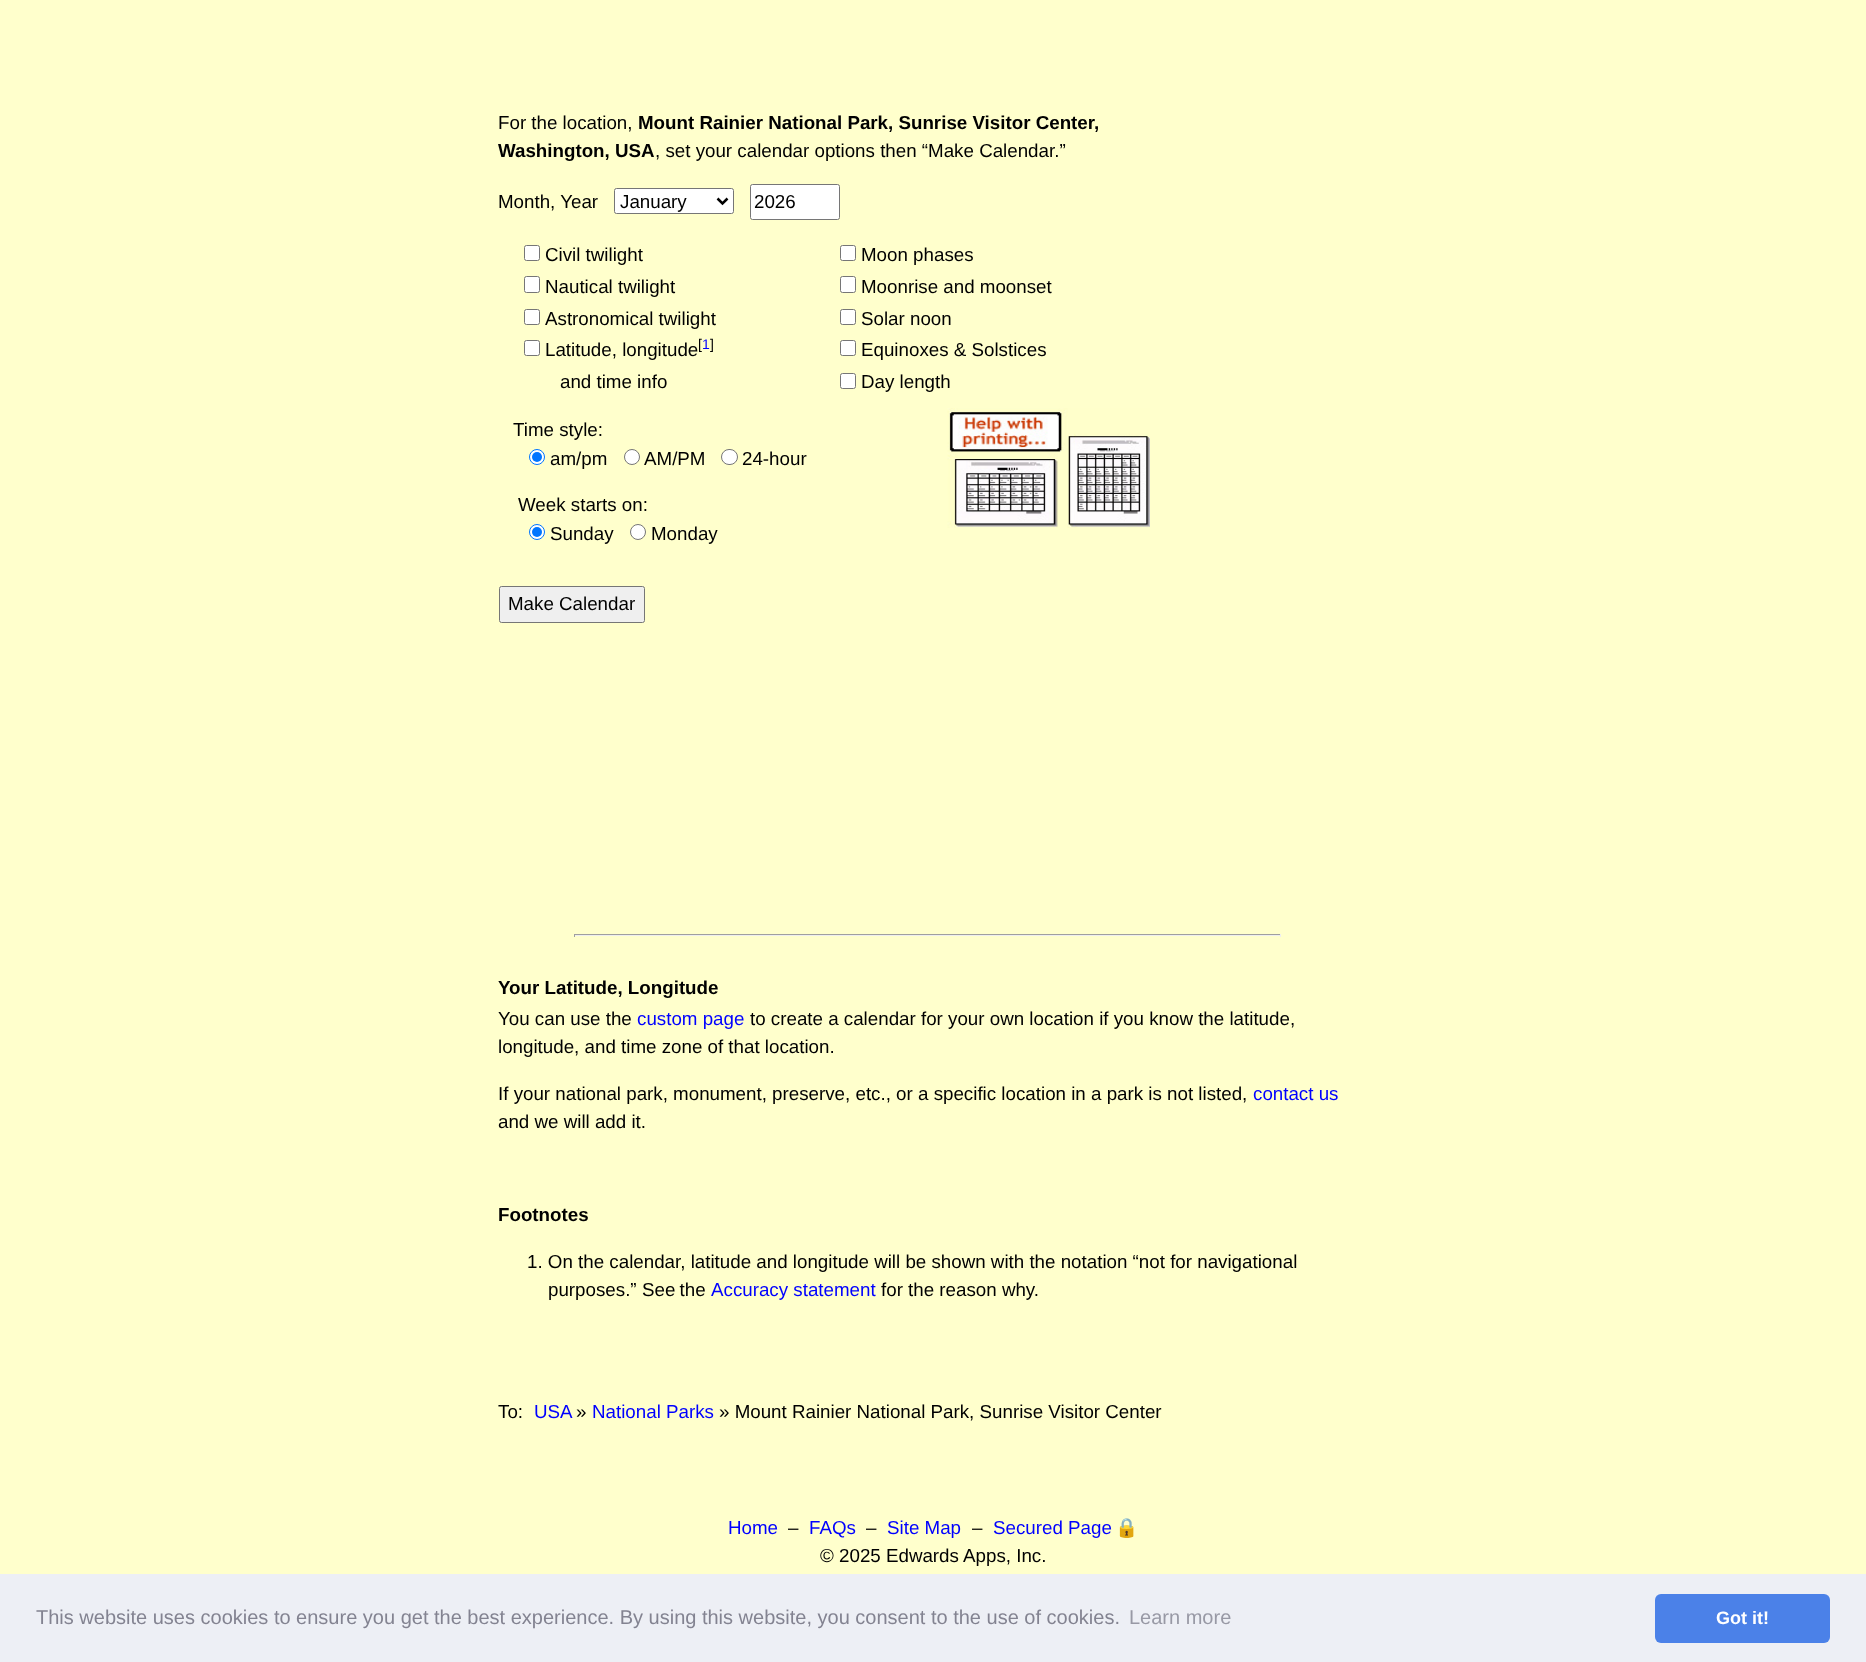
<?xml version="1.0" encoding="UTF-8"?>
<svg xmlns="http://www.w3.org/2000/svg" xmlns:xlink="http://www.w3.org/1999/xlink" width="1866" height="1662">
  <rect width="100%" height="100%" fill="#ffffcc" />
  <rect x="614.5" y="188.5" width="119" height="25" rx="2" fill="#ffffff" stroke="#767676" />
  <path d="M 717.5 198.5 l 5 5 l 5 -5" fill="none" stroke="#000000" stroke-width="2.5" />
  <rect x="750.5" y="184.5" width="89" height="35" rx="2" fill="#ffffff" stroke="#767676" />
  <rect x="524.5" y="245.5" width="15" height="15" rx="2" fill="#ffffff" stroke="#767676" />
  <rect x="524.5" y="276.5" width="15" height="16" rx="2" fill="#ffffff" stroke="#767676" />
  <rect x="524.5" y="309.5" width="15" height="15" rx="2" fill="#ffffff" stroke="#767676" />
  <rect x="524.5" y="340.5" width="15" height="15" rx="2" fill="#ffffff" stroke="#767676" />
  <rect x="840.5" y="245.5" width="15" height="15" rx="2" fill="#ffffff" stroke="#767676" />
  <rect x="840.5" y="276.5" width="15" height="16" rx="2" fill="#ffffff" stroke="#767676" />
  <rect x="840.5" y="309.5" width="15" height="15" rx="2" fill="#ffffff" stroke="#767676" />
  <rect x="840.5" y="340.5" width="15" height="15" rx="2" fill="#ffffff" stroke="#767676" />
  <rect x="840.5" y="373.5" width="15" height="15" rx="2" fill="#ffffff" stroke="#767676" />
  <circle cx="537" cy="457" r="7.5" fill="#ffffff" stroke="#0075ff" />
  <circle cx="537" cy="457" r="5" fill="#0075ff" />
  <circle cx="632" cy="457" r="7.5" fill="#ffffff" stroke="#767676" />
  <rect x="721.5" y="449.5" width="16" height="15" rx="7.5" fill="#ffffff" stroke="#767676" />
  <circle cx="537" cy="532" r="7.5" fill="#ffffff" stroke="#0075ff" />
  <circle cx="537" cy="532" r="5" fill="#0075ff" />
  <circle cx="638" cy="532" r="7.5" fill="#ffffff" stroke="#767676" />
  <image x="947" y="408" width="203" height="120" xlink:href="image1.png" />
  <rect x="499.5" y="586.5" width="145" height="36" rx="2" fill="#efefef" stroke="#767676" />
  <rect x="574" y="934" width="707" height="1" fill="#9f9f9f" />
  <rect x="1280" y="934" width="1" height="3" fill="#eeeeee" />
  <rect x="574" y="935" width="707" height="1" fill="#eeeeee" />
  <rect x="574" y="934" width="1" height="3" fill="#9f9f9f" />
  <rect y="1574" width="1866" height="88" fill="#edeff5" />
  <rect x="1655" y="1594" width="175" height="49" rx="6" fill="#4b81e8" />
  <text x="498" y="129" style="font-family: Liberation Sans; font-size: 18.75px; fill: #000000">For the location,</text>
  <text x="638" y="129" style="font-family: Liberation Sans; font-size: 18.75px; font-weight: bold; fill: #000000">Mount Rainier National Park, Sunrise Visitor Center,</text>
  <text x="498" y="157" style="font-family: Liberation Sans; font-size: 18.75px; font-weight: bold; fill: #000000">Washington, USA</text>
  <text x="655" y="157" style="font-family: Liberation Sans; font-size: 18.75px; fill: #000000">, set your calendar options then “Make Calendar.”</text>
  <text x="498" y="208" style="font-family: Liberation Sans; font-size: 18.75px; fill: #000000">Month, Year</text>
  <text x="620" y="208" style="font-family: Liberation Sans; font-size: 18.75px; fill: #000000">January</text>
  <text x="754" y="208" style="font-family: Liberation Sans; font-size: 18.75px; fill: #000000">2026</text>
  <text x="545" y="261" style="font-family: Liberation Sans; font-size: 18.75px; fill: #000000">Civil twilight</text>
  <text x="545" y="293" style="font-family: Liberation Sans; font-size: 18.75px; fill: #000000">Nautical twilight</text>
  <text x="545" y="325" style="font-family: Liberation Sans; font-size: 18.75px; fill: #000000">Astronomical twilight</text>
  <text x="545" y="356" style="font-family: Liberation Sans; font-size: 18.75px; fill: #000000">Latitude, longitude</text>
  <text x="698" y="349" style="font-family: Liberation Sans; font-size: 14px; fill: #000000">[</text>
  <text x="702" y="349" style="font-family: Liberation Sans; font-size: 14px; fill: #0000ff">1</text>
  <text x="710" y="349" style="font-family: Liberation Sans; font-size: 14px; fill: #000000">]</text>
  <text x="560" y="388" style="font-family: Liberation Sans; font-size: 18.75px; fill: #000000">and time info</text>
  <text x="861" y="261" style="font-family: Liberation Sans; font-size: 18.75px; fill: #000000">Moon phases</text>
  <text x="861" y="293" style="font-family: Liberation Sans; font-size: 18.75px; fill: #000000">Moonrise and moonset</text>
  <text x="861" y="325" style="font-family: Liberation Sans; font-size: 18.75px; fill: #000000">Solar noon</text>
  <text x="861" y="356" style="font-family: Liberation Sans; font-size: 18.75px; fill: #000000">Equinoxes &amp; Solstices</text>
  <text x="861" y="388" style="font-family: Liberation Sans; font-size: 18.75px; fill: #000000">Day length</text>
  <text x="513" y="436" style="font-family: Liberation Sans; font-size: 18.75px; fill: #000000">Time style:</text>
  <text x="550" y="465" style="font-family: Liberation Sans; font-size: 18.75px; fill: #000000">am/pm</text>
  <text x="644" y="465" style="font-family: Liberation Sans; font-size: 18.75px; fill: #000000">AM/PM</text>
  <text x="742" y="465" style="font-family: Liberation Sans; font-size: 18.75px; fill: #000000">24-hour</text>
  <text x="518" y="511" style="font-family: Liberation Sans; font-size: 18.75px; fill: #000000">Week starts on:</text>
  <text x="550" y="540" style="font-family: Liberation Sans; font-size: 18.75px; fill: #000000">Sunday</text>
  <text x="651" y="540" style="font-family: Liberation Sans; font-size: 18.75px; fill: #000000">Monday</text>
  <text x="508" y="610" style="font-family: Liberation Sans; font-size: 18.75px; fill: #000000">Make Calendar</text>
  <text x="498" y="994" style="font-family: Liberation Sans; font-size: 18.75px; font-weight: bold; fill: #000000">Your Latitude, Longitude</text>
  <text x="498" y="1025" style="font-family: Liberation Sans; font-size: 18.75px; fill: #000000">You can use the</text>
  <text x="637" y="1025" style="font-family: Liberation Sans; font-size: 18.75px; fill: #0000ff">custom page</text>
  <text x="750" y="1025" style="font-family: Liberation Sans; font-size: 18.75px; fill: #000000">to create a calendar for your own location if you know the latitude,</text>
  <text x="498" y="1053" style="font-family: Liberation Sans; font-size: 18.75px; fill: #000000">longitude, and time zone of that location.</text>
  <text x="498" y="1100" style="font-family: Liberation Sans; font-size: 18.75px; fill: #000000">If your national park, monument, preserve, etc., or a specific location in a park is not listed,</text>
  <text x="1253" y="1100" style="font-family: Liberation Sans; font-size: 18.75px; fill: #0000ff">contact us</text>
  <text x="498" y="1128" style="font-family: Liberation Sans; font-size: 18.75px; fill: #000000">and we will add it.</text>
  <text x="498" y="1221" style="font-family: Liberation Sans; font-size: 18.75px; font-weight: bold; fill: #000000">Footnotes</text>
  <text x="527" y="1268" style="font-family: Liberation Sans; font-size: 18.75px; fill: #000000">1. On the calendar, latitude and longitude will be shown with the notation “not for navigational</text>
  <text x="548" y="1296" style="font-family: Liberation Sans; font-size: 18.75px; fill: #000000">purposes.”</text>
  <text x="642" y="1296" word-spacing="-1" style="font-family: Liberation Sans; font-size: 18.75px; fill: #000000">See the</text>
  <text x="711" y="1296" style="font-family: Liberation Sans; font-size: 18.75px; fill: #0000ff">Accuracy statement</text>
  <text x="881" y="1296" style="font-family: Liberation Sans; font-size: 18.75px; fill: #000000">for the reason why.</text>
  <text x="498" y="1418" style="font-family: Liberation Sans; font-size: 18.75px; fill: #000000">To:</text>
  <text x="534" y="1418" style="font-family: Liberation Sans; font-size: 18.75px; fill: #0000ff">USA</text>
  <text x="576" y="1418" style="font-family: Liberation Sans; font-size: 18.75px; fill: #000000">»</text>
  <text x="592" y="1418" style="font-family: Liberation Sans; font-size: 18.75px; fill: #0000ff">National Parks</text>
  <text x="719" y="1418" style="font-family: Liberation Sans; font-size: 18.75px; fill: #000000">» Mount Rainier National Park, Sunrise Visitor Center</text>
  <text x="728" y="1534" style="font-family: Liberation Sans; font-size: 18.75px; fill: #0000ff">Home</text>
  <text x="788" y="1534" style="font-family: Liberation Sans; font-size: 18.75px; fill: #000000">–</text>
  <text x="809" y="1534" style="font-family: Liberation Sans; font-size: 18.75px; fill: #0000ff">FAQs</text>
  <text x="866" y="1534" style="font-family: Liberation Sans; font-size: 18.75px; fill: #000000">–</text>
  <text x="887" y="1534" style="font-family: Liberation Sans; font-size: 18.75px; fill: #0000ff">Site Map</text>
  <text x="972" y="1534" style="font-family: Liberation Sans; font-size: 18.75px; fill: #000000">–</text>
  <text x="993" y="1534" style="font-family: Liberation Sans; font-size: 18.75px; fill: #0000ff">Secured Page</text>
  <text x="1115" y="1534" style="font-family: Noto Color Emoji; font-size: 18.75px; fill: #0000ff">🔒</text>
  <text x="820" y="1562" style="font-family: Liberation Sans; font-size: 18.75px; fill: #000000">© 2025 Edwards Apps, Inc.</text>
  <text x="36" y="1624" style="font-family: Liberation Sans; font-size: 20px; fill: #838391">This website uses cookies to ensure you get the best experience. By using this website, you consent to the use of cookies.</text>
  <text x="1129" y="1624" style="font-family: Liberation Sans; font-size: 20px; fill: #9899a5">Learn more</text>
  <text x="1716" y="1624" style="font-family: Liberation Sans; font-size: 18px; font-weight: bold; fill: #ffffff">Got it!</text>
</svg>
